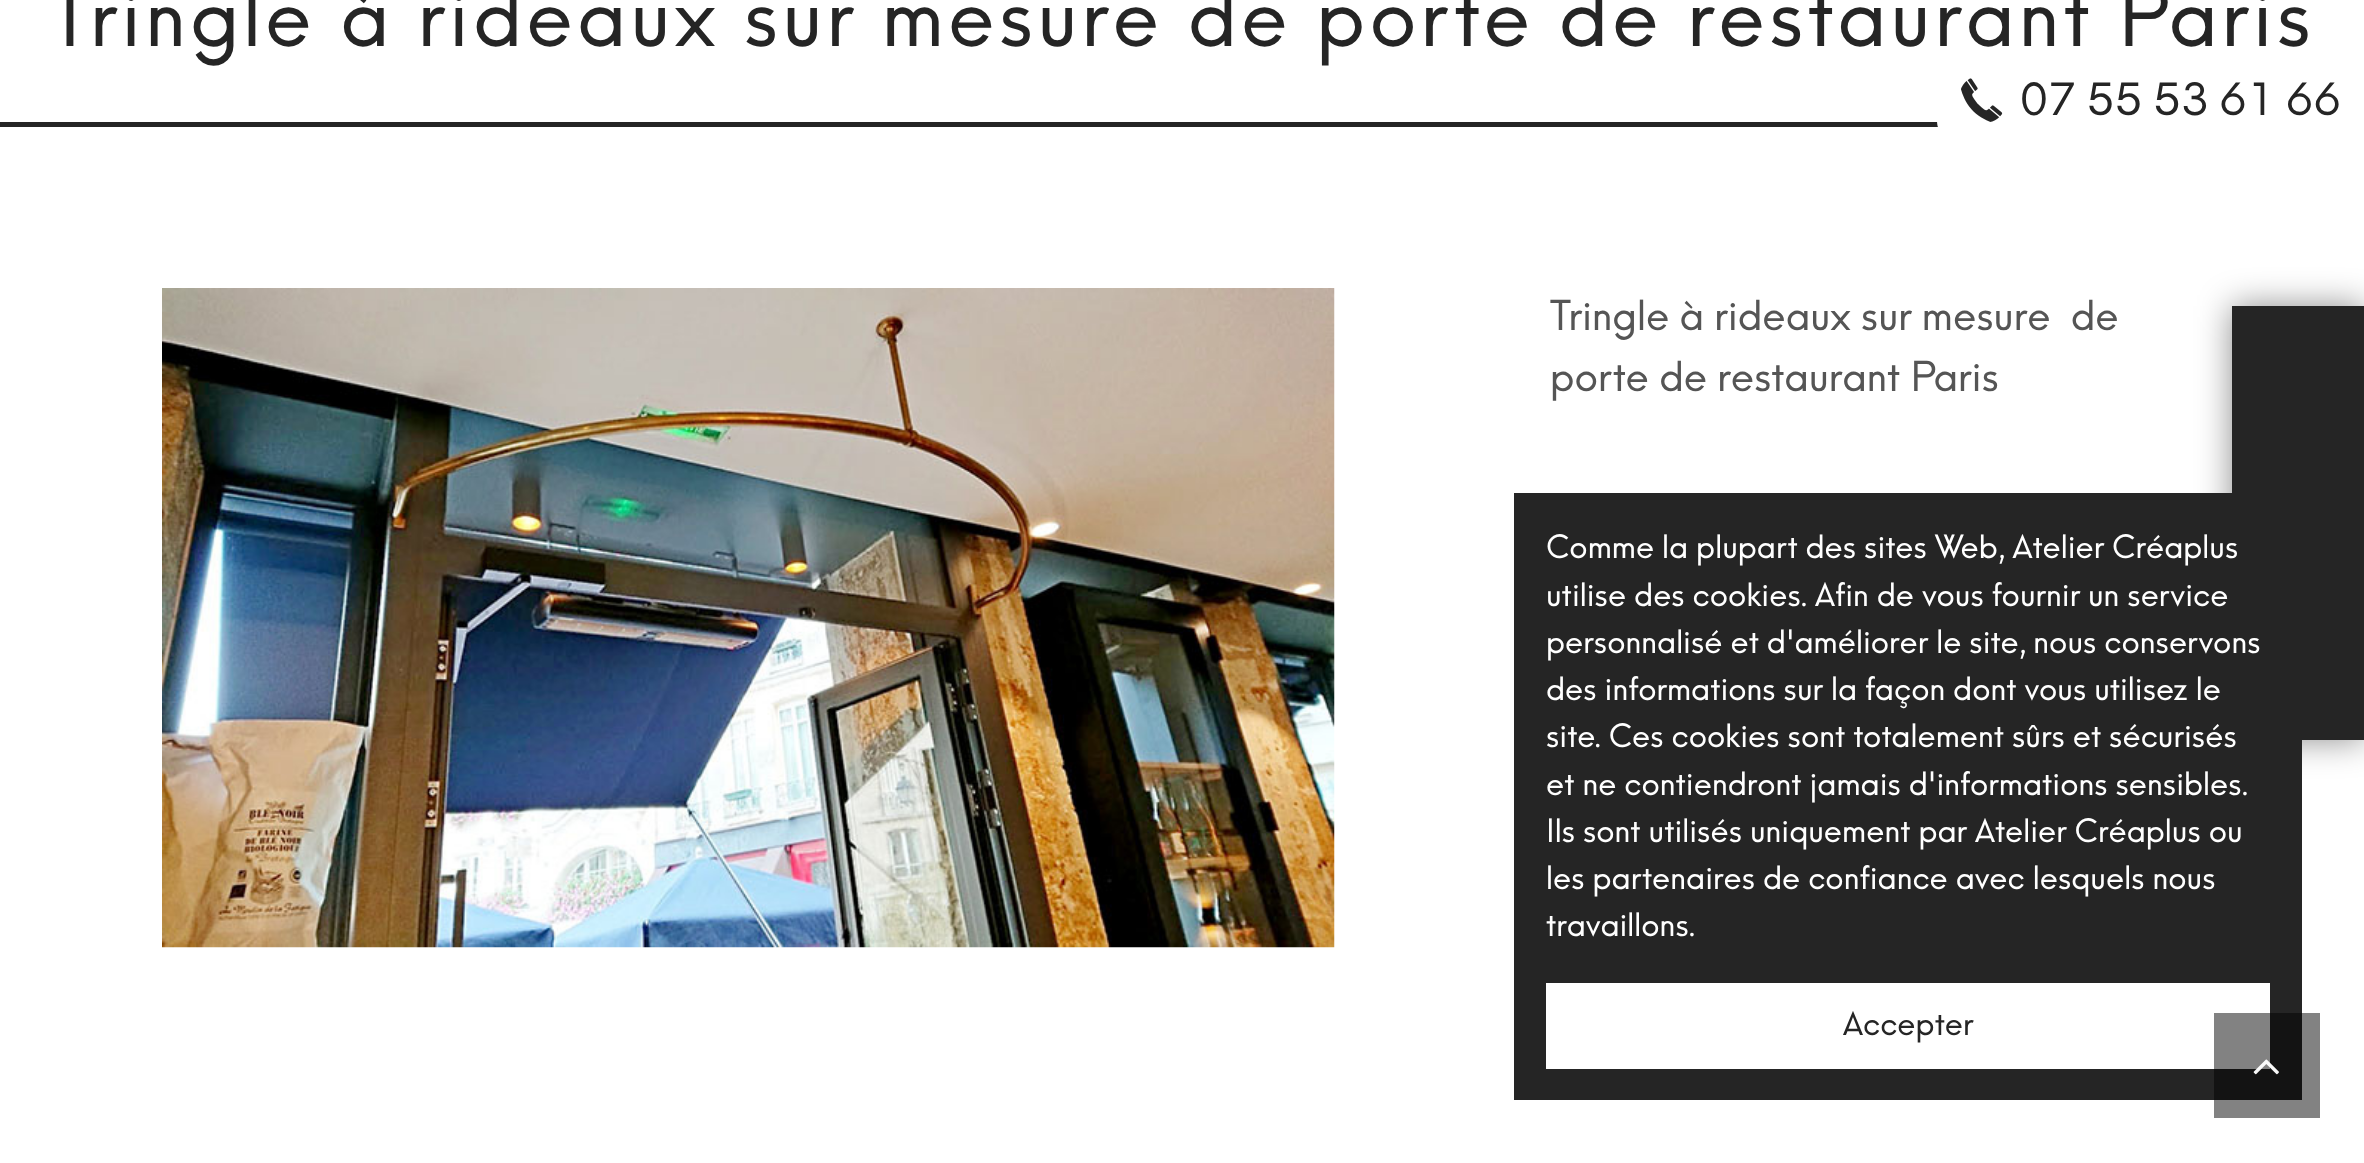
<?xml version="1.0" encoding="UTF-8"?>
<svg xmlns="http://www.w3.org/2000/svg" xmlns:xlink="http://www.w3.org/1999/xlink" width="2364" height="1163">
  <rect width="100%" height="100%" fill="#ffffff" />
  <rect x="2214" y="1013" width="106" height="105" fill="#828282" />
  <rect y="122" width="1938" height="5" fill="#252525" />
  <image x="162" y="288" width="1173" height="660" xlink:href="image1.png" />
  <rect x="2232" y="306" width="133" height="434" fill="#000000" fill-opacity="0.45" filter="blur(17px)" />
  <rect x="2232" y="306" width="132" height="434" fill="#252525" />
  <rect x="1514" y="493" width="788" height="607" fill="#252525" />
  <rect x="2214" y="1013" width="88" height="87" fill="#131313" />
  <rect x="1546" y="983" width="724" height="86" fill="#ffffff" />
  <rect x="2214" y="1013" width="56" height="56" fill="#828282" />
  <image x="2253" y="1059" width="26" height="16" xlink:href="image3.png" />
  <text x="49" y="46" style="font-family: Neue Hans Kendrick; font-size: 81px; letter-spacing: 4.05px; fill: #252525">Tringle à rideaux sur mesure de porte de restaurant Paris</text>
  <text x="1550" y="330" style="font-family: Neue Hans Kendrick; font-size: 40.5px; fill: #555555" xml:space="preserve">Tringle à rideaux sur mesure  de</text>
  <text x="1550" y="391" style="font-family: Neue Hans Kendrick; font-size: 40.5px; fill: #555555">porte de restaurant Paris</text>
  <path d="M 1960 56 h 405 v 88 h -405 c -12.5 0 -23 -10.5 -23 -23 v -42 c 0 -12.5 10.5 -23 23 -23 z" fill="#ffffff" />
  <image x="1961" y="78" width="42" height="44" xlink:href="image2.png" />
  <text x="2020" y="115" style="font-family: Neue Hans Kendrick; font-size: 43.5px; fill: #252525">07 55 53 61 66</text>
  <text x="1546" y="558" style="font-family: Neue Hans Kendrick; font-size: 31.5px; fill: #ffffff">Comme la plupart des sites Web, Atelier Créaplus</text>
  <text x="1546" y="606" style="font-family: Neue Hans Kendrick; font-size: 31.5px; fill: #ffffff">utilise des cookies. Afin de vous fournir un service</text>
  <text x="1546" y="653" style="font-family: Neue Hans Kendrick; font-size: 31.5px; fill: #ffffff">personnalisé et d'améliorer le site, nous conservons</text>
  <text x="1546" y="700" style="font-family: Neue Hans Kendrick; font-size: 31.5px; fill: #ffffff">des informations sur la façon dont vous utilisez le</text>
  <text x="1546" y="747" style="font-family: Neue Hans Kendrick; font-size: 31.5px; fill: #ffffff">site. Ces cookies sont totalement sûrs et sécurisés</text>
  <text x="1546" y="795" style="font-family: Neue Hans Kendrick; font-size: 31.5px; fill: #ffffff">et ne contiendront jamais d'informations sensibles.</text>
  <text x="1546" y="842" style="font-family: Neue Hans Kendrick; font-size: 31.5px; fill: #ffffff">Ils sont utilisés uniquement par Atelier Créaplus ou</text>
  <text x="1546" y="889" style="font-family: Neue Hans Kendrick; font-size: 31.5px; fill: #ffffff">les partenaires de confiance avec lesquels nous</text>
  <text x="1546" y="936" style="font-family: Neue Hans Kendrick; font-size: 31.5px; fill: #ffffff">travaillons.</text>
  <text x="1843" y="1035" style="font-family: Neue Hans Kendrick; font-size: 31.5px; fill: #252525">Accepter</text>
</svg>
